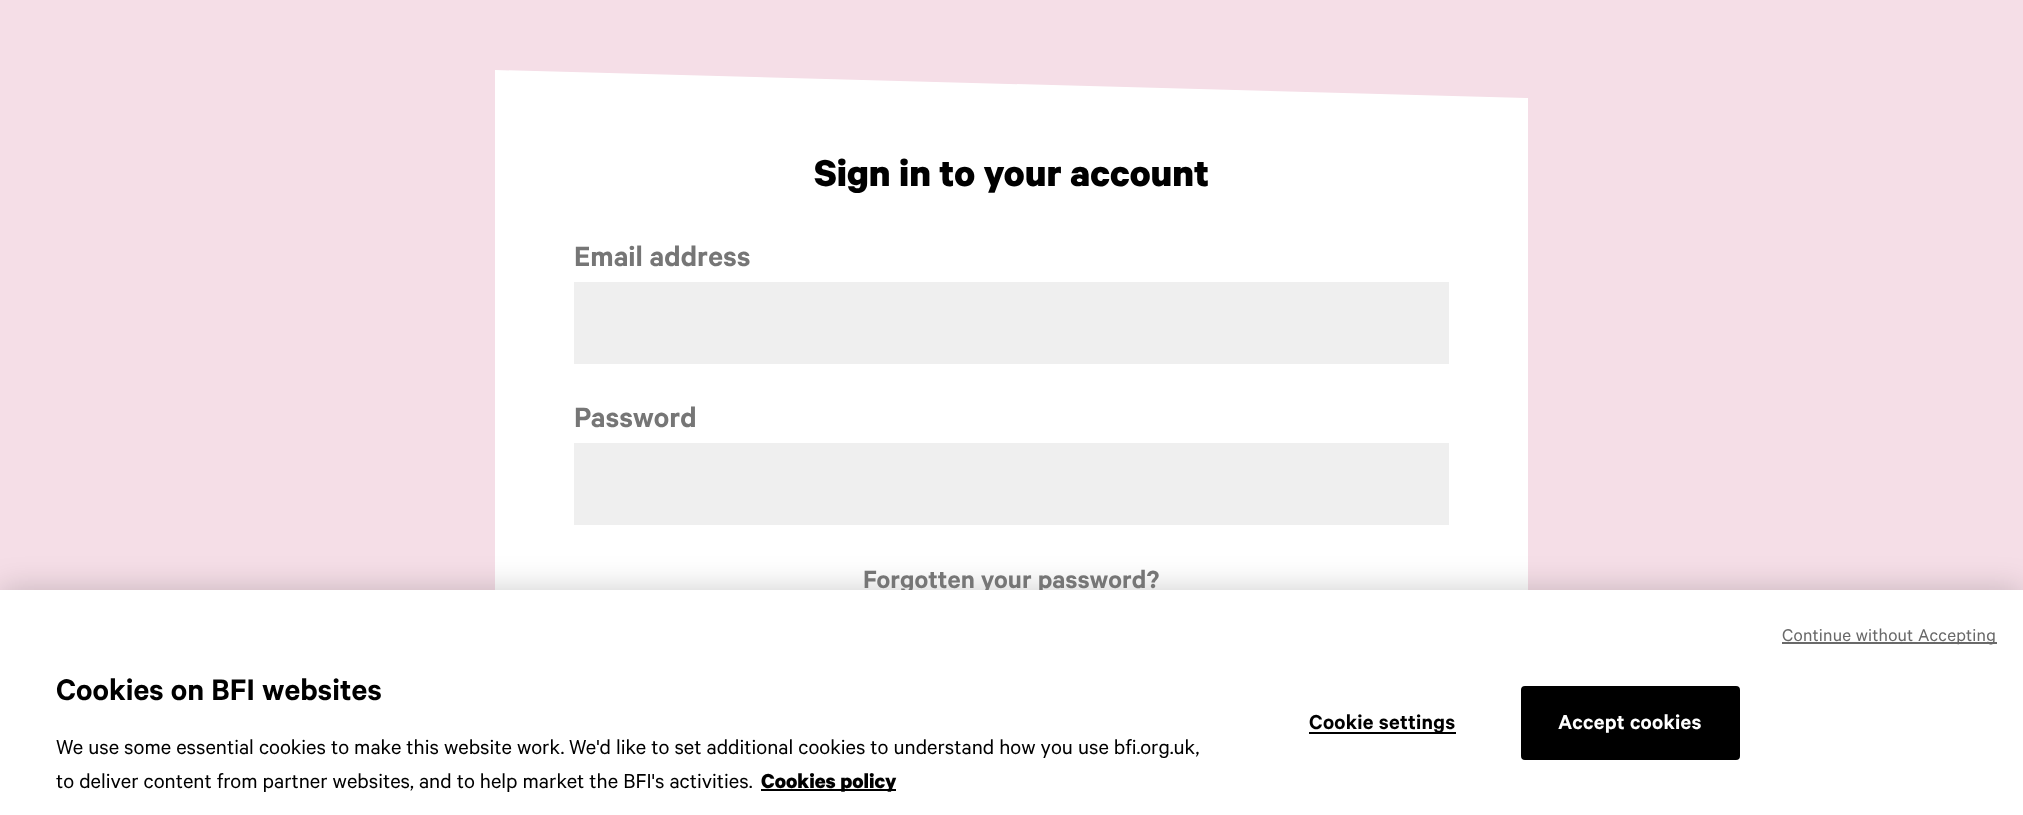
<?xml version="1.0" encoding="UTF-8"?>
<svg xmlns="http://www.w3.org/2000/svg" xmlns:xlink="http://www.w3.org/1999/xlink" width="2023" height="815">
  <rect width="100%" height="100%" fill="#f5dee7" />
  <path d="M 495 70 l 1033 28 v 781 l -1033 -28 z" fill="#ffffff" />
  <rect x="574" y="282" width="875" height="82" fill="#efefef" />
  <rect x="574" y="443" width="875" height="82" fill="#efefef" />
  <rect y="590" width="2023" height="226" fill="#000000" fill-opacity="0.2" filter="blur(16px)" />
  <text x="814" y="186" style="font-family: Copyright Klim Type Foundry; font-size: 42px; font-weight: bold; fill: #000000">Sign in to your account</text>
  <text x="574" y="266" style="font-family: Copyright Klim Type Foundry; font-size: 31.5px; font-weight: 600; fill: #767676">Email address</text>
  <text x="574" y="427" style="font-family: Copyright Klim Type Foundry; font-size: 31.5px; font-weight: 600; fill: #767676">Password</text>
  <text x="863" y="588" style="font-family: Copyright Klim Type Foundry; font-size: 28px; font-weight: 600; fill: #767676">Forgotten your password?</text>
  <rect y="590" width="2023" height="225" fill="#ffffff" />
  <rect x="1782" y="642" width="215" height="2" fill="#696969" />
  <text x="1782" y="641" style="font-family: Copyright Klim Type Foundry; font-size: 19.25px; letter-spacing: 0.2px; fill: #696969">Continue without Accepting</text>
  <text x="56" y="700" style="font-family: Copyright Klim Type Foundry; font-size: 33.5px; font-weight: 600; fill: #000000">Cookies on BFI websites</text>
  <text x="56" y="754" style="font-family: Copyright Klim Type Foundry; font-size: 22.75px; fill: #000000">We use some essential cookies to make this website work.</text>
  <text x="569" y="754" style="font-family: Copyright Klim Type Foundry; font-size: 22.75px; fill: #000000">We'd like to set additional cookies to understand how you use bfi.org.uk,</text>
  <text x="56" y="788" style="font-family: Copyright Klim Type Foundry; font-size: 22.75px; fill: #000000">to deliver content from partner websites, and to help market the BFI's activities.</text>
  <rect x="761" y="789" width="135" height="2" fill="#000000" />
  <text x="761" y="788" style="font-family: Copyright Klim Type Foundry; font-size: 22.75px; font-weight: bold; fill: #000000">Cookies policy</text>
  <rect x="1309" y="732" width="147" height="2" fill="#000000" />
  <text x="1309" y="729" style="font-family: Copyright Klim Type Foundry; font-size: 22.75px; font-weight: 600; letter-spacing: 0.25px; fill: #000000">Cookie settings</text>
  <rect x="1522" y="687" width="217" height="72" rx="3" fill="#000000" stroke="#000000" stroke-width="2" />
  <text x="1558" y="729" style="font-family: Copyright Klim Type Foundry; font-size: 22.75px; font-weight: 600; letter-spacing: 0.25px; fill: #ffffff">Accept cookies</text>
</svg>
